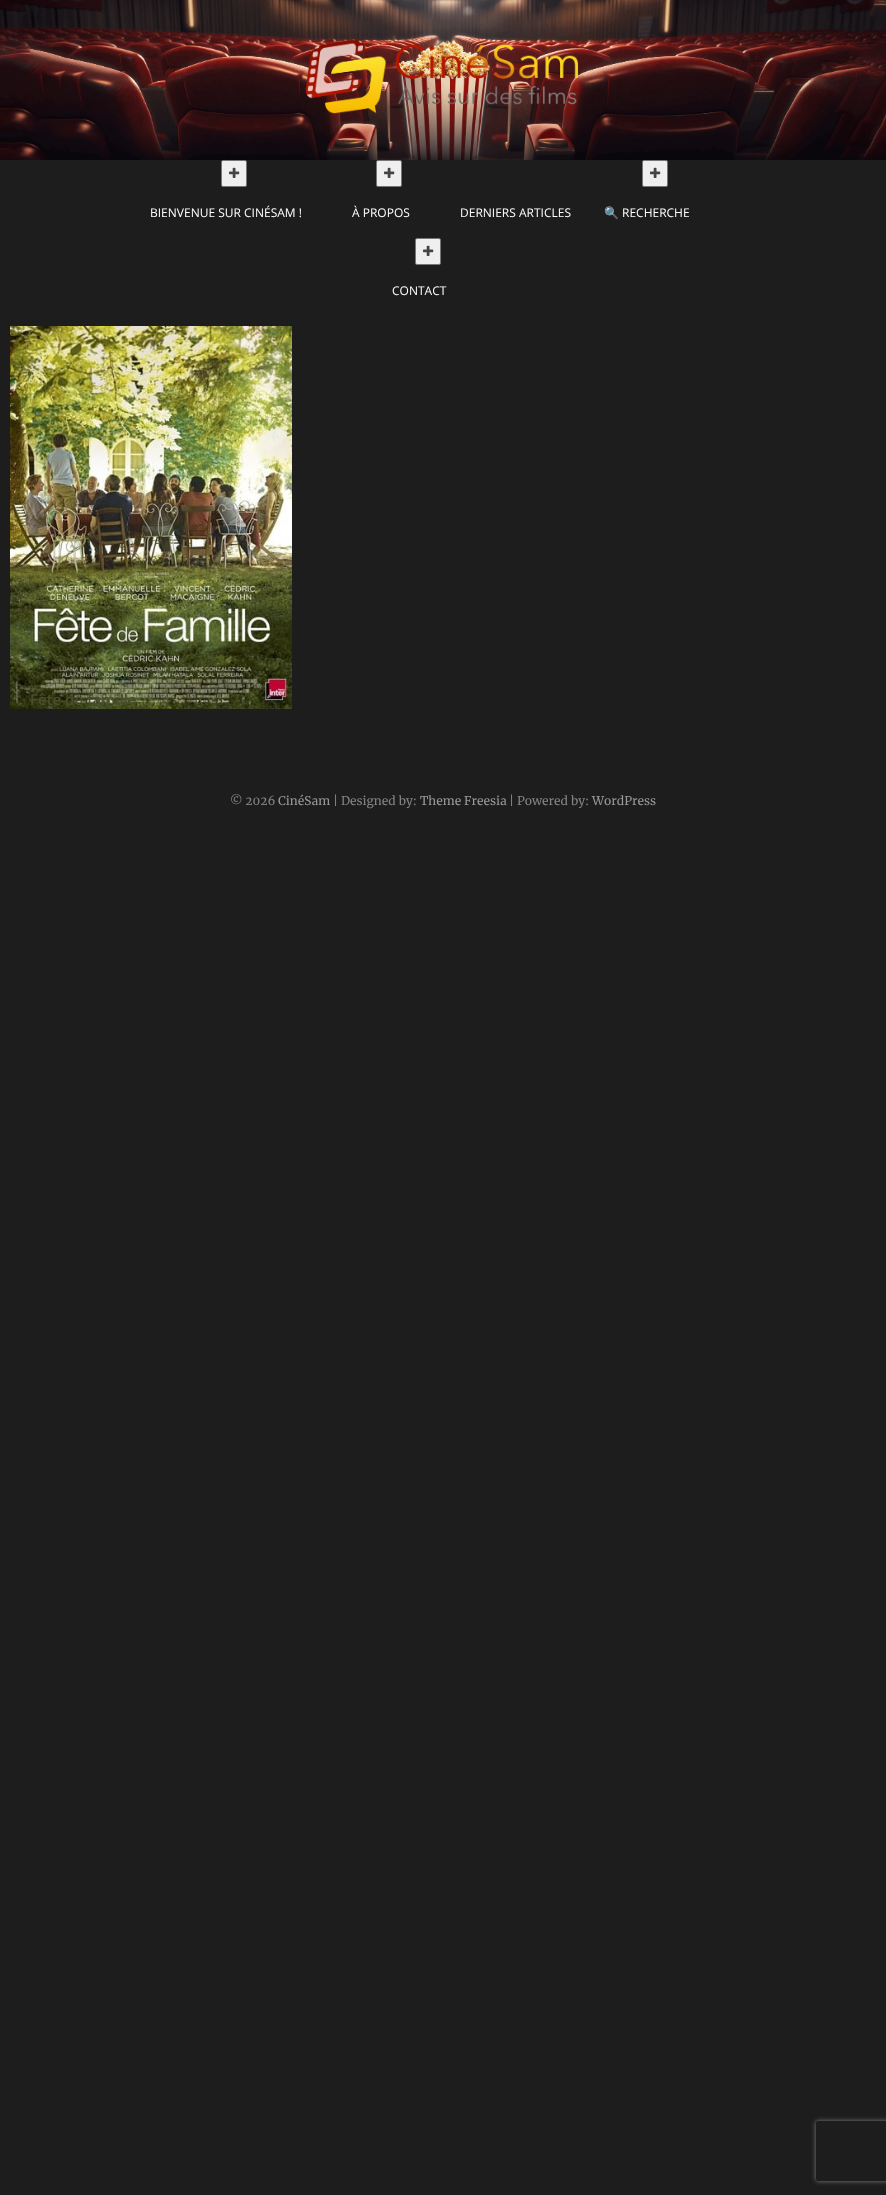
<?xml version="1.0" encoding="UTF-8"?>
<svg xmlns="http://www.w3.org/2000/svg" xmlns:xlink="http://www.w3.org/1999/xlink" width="886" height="2195">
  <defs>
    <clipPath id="clip1"><path d="M 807 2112 h 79 v 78 h -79 z m 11 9 h 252 c 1 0 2 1 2 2 v 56 c 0 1 -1 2 -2 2 h -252 c -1 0 -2 -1 -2 -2 v -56 c 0 -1 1 -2 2 -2 z" clip-rule="evenodd" /></clipPath>
  </defs>
  <rect width="100%" height="100%" fill="#1d1d1d" />
  <image x="0" y="0" width="886" height="160" xlink:href="image1.png" />
  <image x="305" y="39" width="274" height="75" xlink:href="image2.png" />
  <rect x="221.5" y="160.5" width="25" height="26" rx="1.5" fill="#efefef" stroke="#767676" />
  <image x="229" y="167" width="11" height="11" xlink:href="image3.png" />
  <rect x="376.5" y="160.5" width="25" height="26" rx="1.5" fill="#efefef" stroke="#767676" />
  <image x="384" y="167" width="11" height="11" xlink:href="image3.png" />
  <rect x="642.5" y="160.5" width="25" height="26" rx="1.5" fill="#efefef" stroke="#767676" />
  <image x="650" y="167" width="11" height="11" xlink:href="image3.png" />
  <rect x="415.5" y="238.5" width="25" height="26" rx="1.5" fill="#efefef" stroke="#767676" />
  <image x="423" y="245" width="11" height="11" xlink:href="image3.png" />
  <image x="10" y="326" width="282" height="383" xlink:href="image4.png" />
  <g clip-path="url(#clip1)">
    <rect x="816" y="2121" width="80" height="60" rx="2" fill="#808080" filter="blur(2.5px)" />
  </g>
  <text x="150" y="217" style="font-family: Open Sans; font-size: 12px; fill: #ffffff">BIENVENUE SUR CINÉSAM !</text>
  <text x="352" y="217" style="font-family: Open Sans; font-size: 12px; fill: #ffffff">À PROPOS</text>
  <text x="460" y="217" style="font-family: Open Sans; font-size: 12px; fill: #ffffff">DERNIERS ARTICLES</text>
  <text x="604" y="217" style="font-family: Noto Color Emoji; font-size: 12px; fill: #ffffff">🔍</text>
  <text x="622" y="217" style="font-family: Open Sans; font-size: 12px; fill: #ffffff">RECHERCHE</text>
  <text x="392" y="295" style="font-family: Open Sans; font-size: 12px; fill: #ffffff">CONTACT</text>
  <text x="30" y="705" style="font-family: Open Sans; font-size: 15px; font-weight: 600; fill: #494f2b">Fête de famille</text>
  <text x="230" y="805" style="font-family: Merriweather; font-size: 12px; fill: #848484">© 2026</text>
  <text x="278" y="805" style="font-family: Merriweather; font-size: 12px; fill: #999999">CinéSam</text>
  <text x="333" y="805" style="font-family: Merriweather; font-size: 12px; fill: #848484">| Designed by:</text>
  <text x="420" y="805" style="font-family: Merriweather; font-size: 12px; fill: #999999">Theme Freesia</text>
  <text x="509" y="805" style="font-family: Merriweather; font-size: 12px; fill: #848484">| Powered by:</text>
  <text x="592" y="805" style="font-family: Merriweather; font-size: 12px; fill: #999999">WordPress</text>
</svg>
